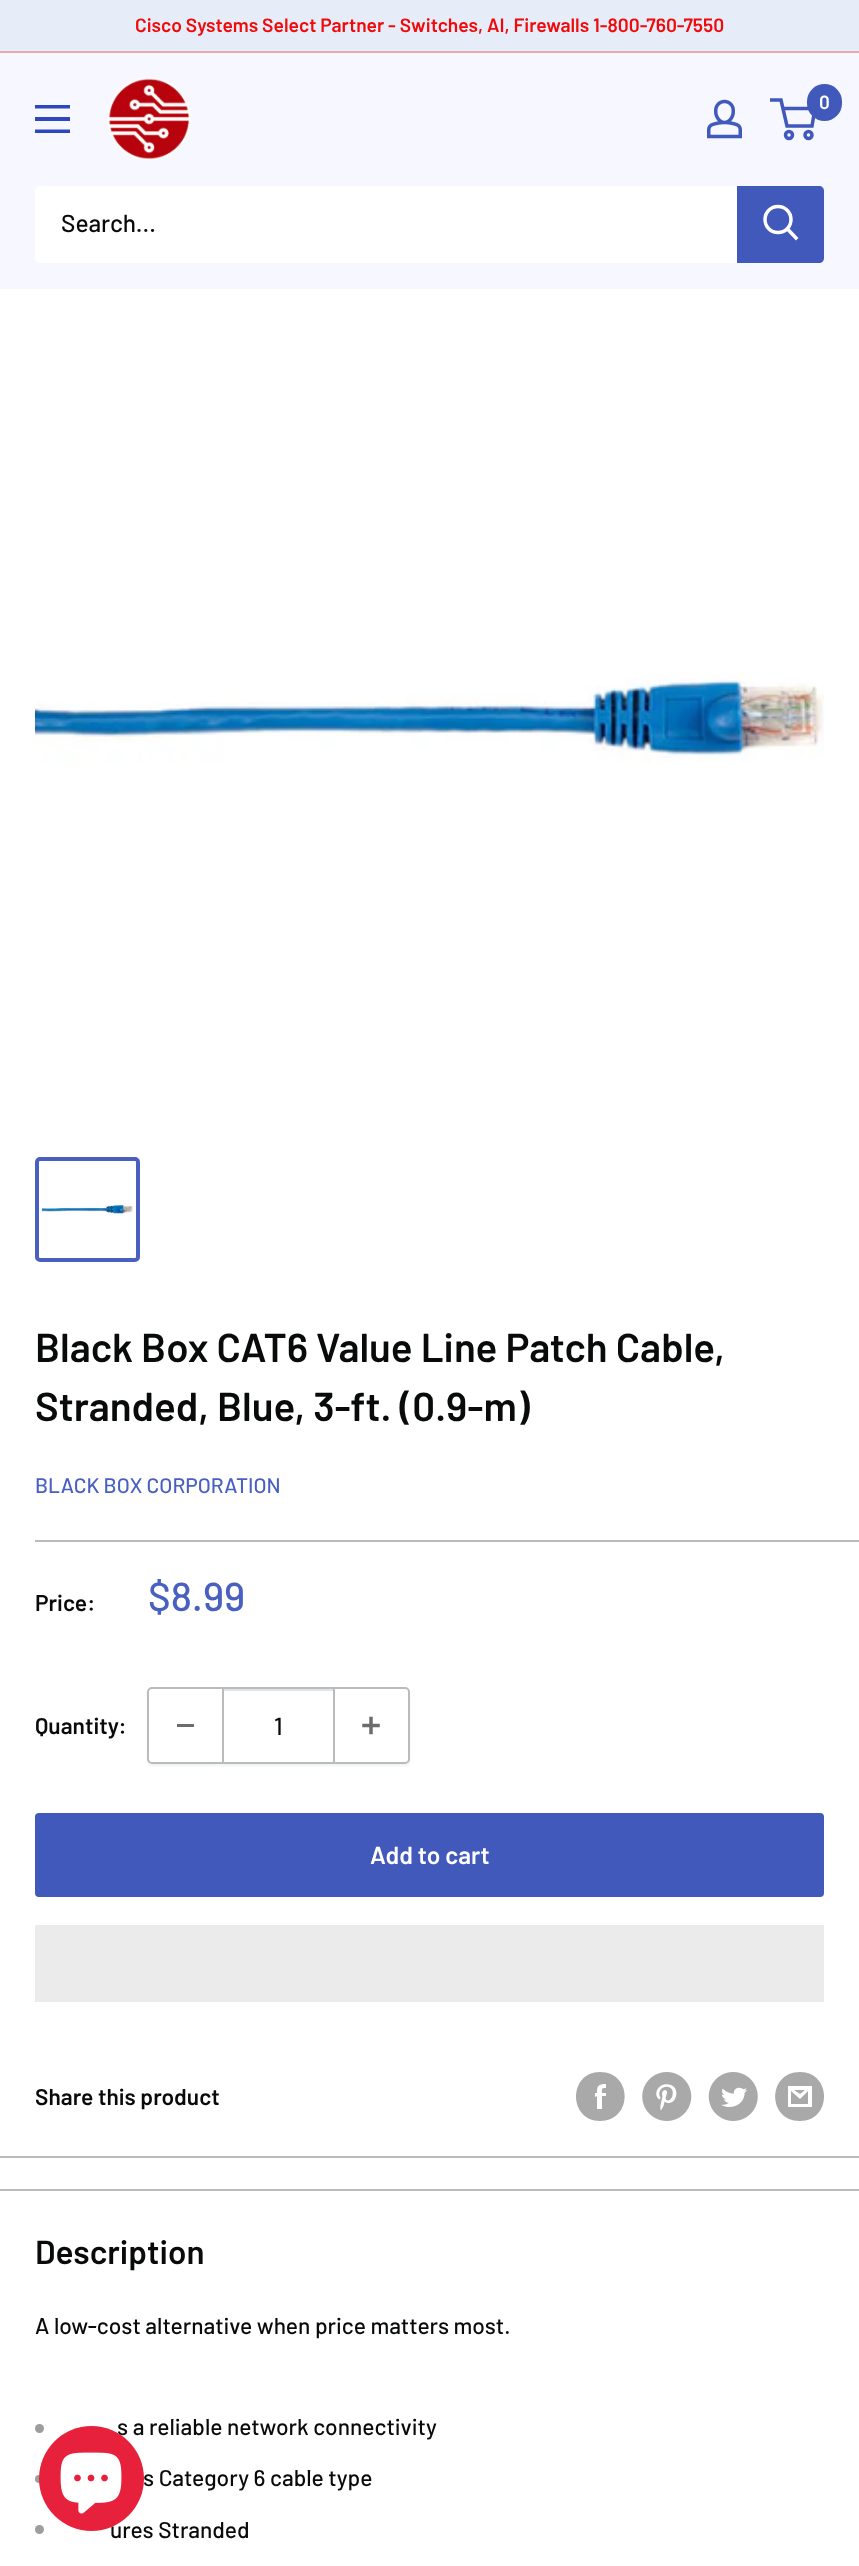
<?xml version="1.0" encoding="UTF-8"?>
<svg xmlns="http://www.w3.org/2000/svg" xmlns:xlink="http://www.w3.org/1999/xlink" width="859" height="2566">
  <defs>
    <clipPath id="clip1"><path d="M 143 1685 h 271 v 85 h -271 z m 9 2 h 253 c 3 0 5 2 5 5 v 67 c 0 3 -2 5 -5 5 h -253 c -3 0 -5 -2 -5 -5 v -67 c 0 -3 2 -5 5 -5 z" clip-rule="evenodd" /></clipPath>
  </defs>
  <rect width="100%" height="100%" fill="#ffffff" />
  <rect width="859" height="51" fill="#e6edf9" />
  <rect y="51" width="859" height="2" fill="#e9a9b1" />
  <rect y="53" width="859" height="236" fill="#f6f7ff" />
  <image x="107" y="77" width="84" height="84" xlink:href="image1.png" />
  <image x="707" y="99" width="35" height="40" xlink:href="image2.png" />
  <circle cx="789" cy="135" r="3.5" fill="none" stroke="#4159ba" stroke-width="3.5" />
  <circle cx="808.5" cy="135" r="3.5" fill="none" stroke="#4159ba" stroke-width="3.5" />
  <path d="M 783 108.5 h 32 l -3 17.5 h -25 l -6 -26 h -11" fill="none" stroke="#4159ba" stroke-width="3.5" />
  <rect x="807" y="84" width="35" height="37" rx="17.5" fill="#4159ba" />
  <path d="M 35 129.5 h 35 v 3.5 h -35 z m 0 -24.5 h 35 v 3.5 h -35 z m 0 12 h 35 v 4 h -35 z" fill="#2c47c0" fill-rule="evenodd" />
  <rect x="35" y="186" width="789" height="77" rx="5" fill="#ffffff" />
  <path d="M 737 186 h 82 c 3 0 5 2 5 5 v 67 c 0 3 -2 5 -5 5 h -82 z" fill="#4159ba" />
  <path d="M 796 238 l -8.5 -9" fill="none" stroke="#ffffff" stroke-width="3.5" stroke-linecap="square" />
  <circle cx="778" cy="219.5" r="13" fill="none" stroke="#ffffff" stroke-width="3.5" />
  <image x="35" y="671" width="789" height="92" xlink:href="image3.png" />
  <rect x="37" y="1159" width="101" height="101" rx="3" fill="none" stroke="#4960c0" stroke-width="4" />
  <image x="42" y="1203" width="91" height="12" xlink:href="image4.png" />
  <rect y="2156" width="859" height="2" fill="#b8bcbe" />
  <rect x="35" y="1540" width="824" height="2" fill="#b8bcbe" />
  <g clip-path="url(#clip1)">
    <rect x="147" y="1689" width="263" height="77" rx="5" fill="#b8bcbe" fill-opacity="0.2" filter="blur(1px)" />
  </g>
  <rect x="148" y="1688" width="261" height="75" rx="4" fill="none" stroke="#b8bcbe" stroke-width="2" />
  <rect x="177" y="1724" width="17" height="3" fill="#6b6c6c" />
  <rect x="224" y="1689" width="109" height="2" fill="#e3e4e5" />
  <rect x="333" y="1689" width="2" height="73" fill="#b8bcbe" />
  <rect x="222" y="1689" width="2" height="73" fill="#b8bcbe" />
  <image x="362" y="1716" width="18" height="19" xlink:href="image5.png" />
  <rect x="35" y="1813" width="789" height="84" rx="4" fill="#4159ba" />
  <rect x="35" y="1925" width="789" height="77" fill="#ebebeb" />
  <path d="M 600 2121 c -32 0 -32 -49 0 -49 c 33 0 33 49 0 49 z m 6 -28 h -4 c 0 -4 -1 -5 4 -5 v -4 c -8 0 -9 2 -9 9 h -2 v 4 l 2 -1 v 13 h 5 v -13 h 4 z" fill="#a9a9a9" fill-rule="evenodd" />
  <image x="642" y="2072" width="50" height="49" xlink:href="image6.png" />
  <image x="708" y="2072" width="50" height="49" xlink:href="image7.png" />
  <path d="M 800 2121 c -33 0 -33 -49 0 -49 c 32 0 32 49 0 49 z m -6 -31 h 11 l -5 4 z m 14 1 v 13 h -17 v -13 l 9 8 z m 4 -5 h -24 v 21 h 24 z" fill="#a9a9a9" />
  <rect y="2189" width="859" height="2" fill="#b8bcbe" />
  <circle cx="39.5" cy="2428.5" r="4.5" fill="#9d9d9d" />
  <rect x="35" y="2475" width="9" height="8" rx="4" fill="#9d9d9d" />
  <circle cx="39.5" cy="2529.5" r="4.5" fill="#9d9d9d" />
  <text x="135" y="32" style="font-family: Barlow; font-size: 19.25px; font-weight: 600; fill: #f00a0a">Cisco Systems Select Partner - Switches, AI, Firewalls 1-800-760-7550</text>
  <text x="819" y="109" style="font-family: Barlow; font-size: 19px; font-weight: 600; fill: #ffffff">0</text>
  <text x="61" y="232" style="font-family: Barlow; font-size: 24.5px; font-weight: 500; fill: #090a0a">Search...</text>
  <text x="35" y="1362" style="font-family: Barlow; font-size: 40.25px; font-weight: 600; fill: #090a0a">Black Box CAT6 Value Line Patch Cable,</text>
  <text x="35" y="1421" style="font-family: Barlow; font-size: 40.25px; font-weight: 600; fill: #090a0a">Stranded, Blue, 3-ft. (0.9-m)</text>
  <text x="35" y="1493" style="font-family: Barlow; font-size: 21px; font-weight: 500; fill: #4960c0">BLACK BOX CORPORATION</text>
  <text x="35" y="1611" style="font-family: Barlow; font-size: 22.75px; font-weight: 600; fill: #090a0a">Price:</text>
  <text x="148" y="1611" style="font-family: Barlow; font-size: 40.25px; font-weight: 500; fill: #4960c0">$8.99</text>
  <text x="35" y="1734" style="font-family: Barlow; font-size: 22.75px; font-weight: 600; fill: #090a0a">Quantity:</text>
  <text x="274" y="1735" style="font-family: Barlow; font-size: 24.5px; font-weight: 500; fill: #090a0a">1</text>
  <text x="370" y="1864" style="font-family: Barlow; font-size: 24.5px; font-weight: 600; fill: #ffffff">Add to cart</text>
  <text x="35" y="2105" style="font-family: Barlow; font-size: 22.75px; font-weight: 600; fill: #090a0a">Share this product</text>
  <text x="35" y="2264" style="font-family: Barlow; font-size: 33.25px; font-weight: 600; fill: #090a0a">Description</text>
  <text x="35" y="2334" style="font-family: Barlow; font-size: 22.75px; font-weight: 500; fill: #090a0a">A low-cost alternative when price matters most.</text>
  <text x="117" y="2435" style="font-family: Barlow; font-size: 22.75px; font-weight: 500; fill: #090a0a">s a reliable network connectivity</text>
  <text x="143" y="2486" style="font-family: Barlow; font-size: 22.75px; font-weight: 500; fill: #090a0a">s Category 6 cable type</text>
  <text x="110" y="2538" style="font-family: Barlow; font-size: 22.75px; font-weight: 500; fill: #090a0a">ures Stranded</text>
  <circle cx="91.5" cy="2478.5" r="52.5" fill="#e7203b" />
  <image x="60" y="2452" width="62" height="62" xlink:href="image8.png" />
</svg>
